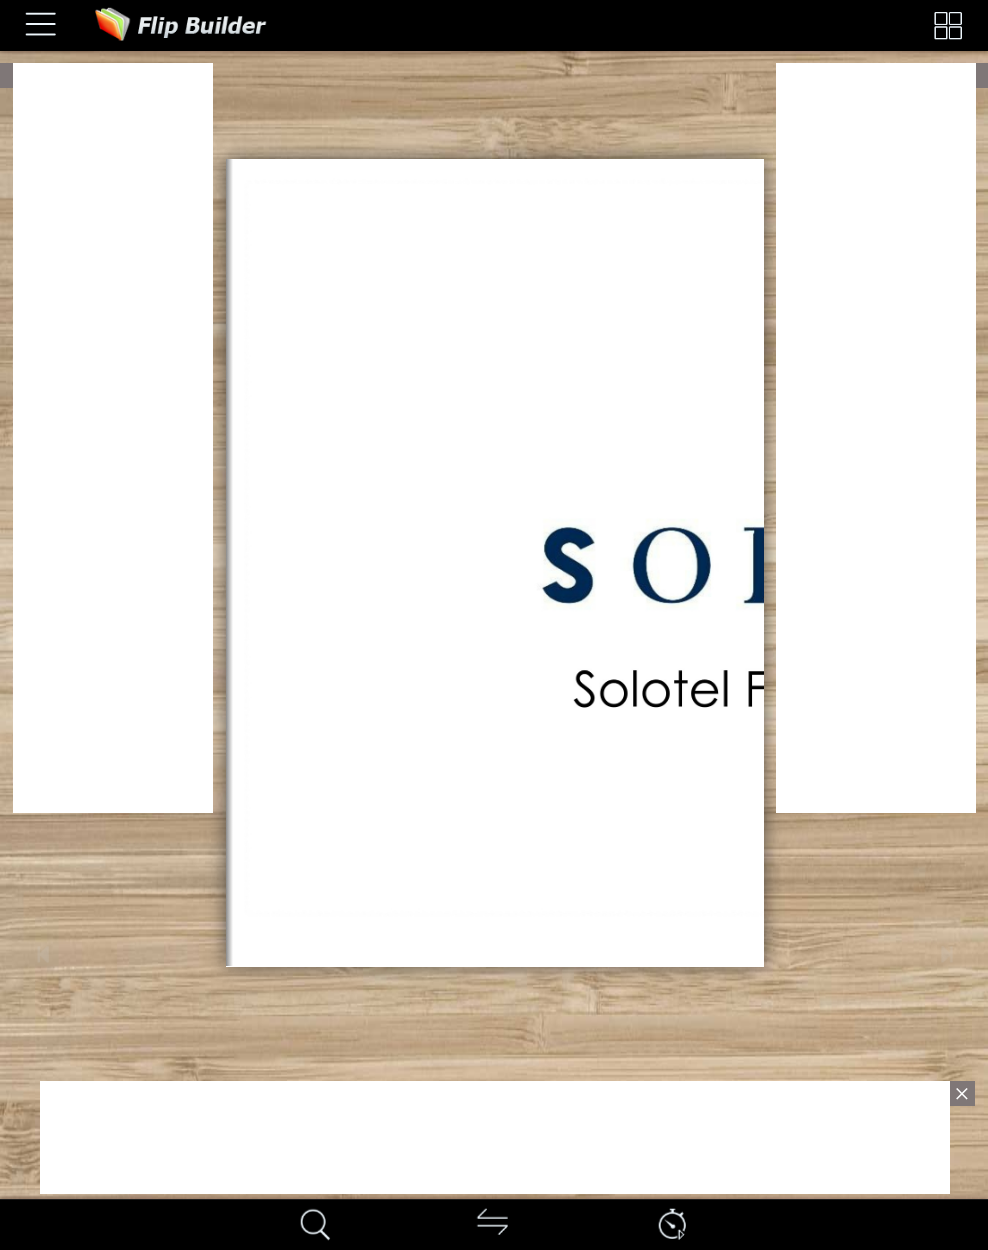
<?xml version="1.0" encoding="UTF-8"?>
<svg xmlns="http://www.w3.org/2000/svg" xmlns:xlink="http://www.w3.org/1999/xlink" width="988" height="1250">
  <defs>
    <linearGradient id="g1" gradientUnits="userSpaceOnUse" x1="226" y1="563" x2="233" y2="563"><stop offset="0" stop-color="#8a8a8a" /><stop offset="1" stop-color="#ffffff" /></linearGradient>
  </defs>
  <rect width="100%" height="100%" fill="#ffffff" />
  <image x="0" y="51" width="988" height="1148" xlink:href="image4.png" />
  <rect width="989" height="51" fill="#280000" fill-opacity="0.5" filter="blur(3px)" />
  <rect width="988" height="51" fill="#000000" />
  <image x="25" y="12" width="31" height="24" xlink:href="image1.png" />
  <image x="95" y="7" width="172" height="34" xlink:href="image2.png" />
  <image x="934" y="12" width="28" height="28" xlink:href="image3.png" />
  <image x="37" y="946" width="12" height="17" xlink:href="image5.png" />
  <rect x="226" y="159" width="538" height="807" fill="#282828" fill-opacity="0.7" filter="blur(9.5px)" />
  <rect x="226" y="159" width="7" height="807" fill="url(#g1)" />
  <image x="233" y="159" width="531" height="807" xlink:href="image6.png" />
  <rect x="226" y="966" width="538" height="1" fill="#ffffff" />
  <image x="941" y="946" width="12" height="17" xlink:href="image7.png" />
  <rect y="1199" width="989" height="51" fill="#280000" fill-opacity="0.5" filter="blur(3px)" />
  <rect y="1200" width="988" height="50" fill="#000000" />
  <rect y="1199" width="988" height="1" fill="#1e1e1e" />
  <image x="300" y="1208" width="31" height="33" xlink:href="image8.png" />
  <image x="476" y="1208" width="32" height="27" xlink:href="image9.png" />
  <image x="658" y="1208" width="28" height="32" xlink:href="image10.png" />
  <rect x="13" y="63" width="200" height="750" fill="#ffffff" />
  <rect y="63" width="13" height="25" fill="#7f7777" />
  <rect x="776" y="63" width="200" height="750" fill="#ffffff" />
  <rect x="976" y="63" width="12" height="25" fill="#7f7777" />
  <rect x="40" y="1081" width="910" height="113" fill="#ffffff" />
  <rect x="950" y="1081" width="25" height="25" fill="#7f7777" />
  <text x="954" y="1103" style="font-family: Liberation Serif; font-size: 28px; fill: #ffffff">×</text>
</svg>
